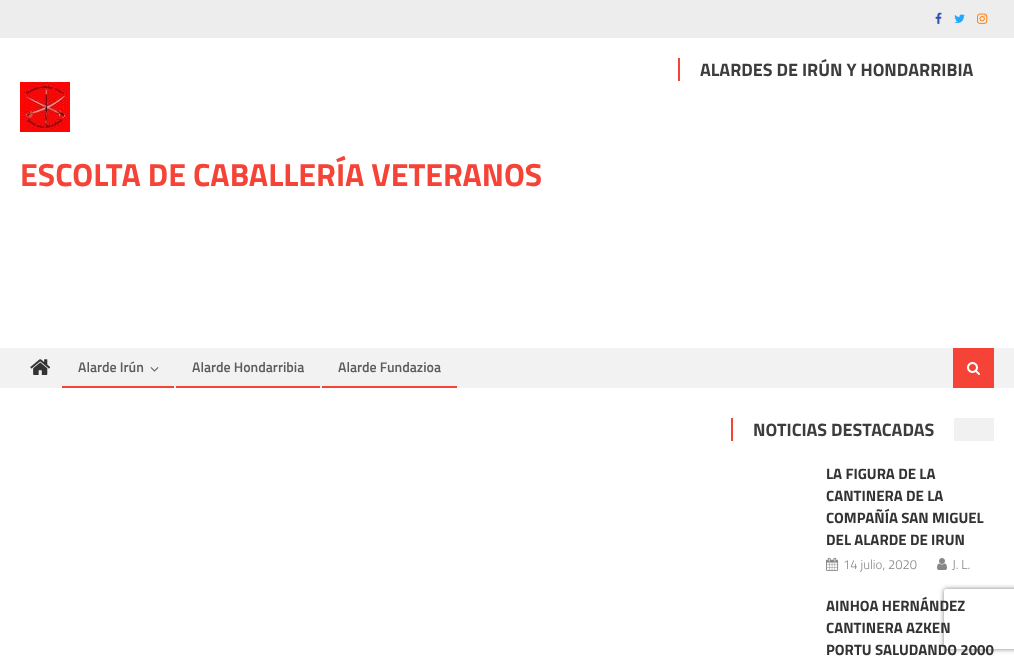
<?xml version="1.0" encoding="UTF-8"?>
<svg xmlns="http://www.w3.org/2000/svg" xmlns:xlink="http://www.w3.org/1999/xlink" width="1014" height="663">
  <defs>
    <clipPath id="clip1"><path d="M 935 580 h 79 v 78 h -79 z m 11 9 h 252 c 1 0 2 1 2 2 v 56 c 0 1 -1 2 -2 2 h -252 c -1 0 -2 -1 -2 -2 v -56 c 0 -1 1 -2 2 -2 z" clip-rule="evenodd" /></clipPath>
  </defs>
  <rect width="100%" height="100%" fill="#ffffff" />
  <rect width="1014" height="38" fill="#ededed" />
  <image x="935" y="12" width="7" height="12" xlink:href="image1.png" />
  <image x="954" y="14" width="11" height="9" xlink:href="image2.png" />
  <image x="977" y="13" width="11" height="11" xlink:href="image3.png" />
  <rect x="678" y="58" width="2" height="23" fill="#f54337" />
  <image x="20" y="82" width="50" height="50" xlink:href="image4.png" />
  <rect y="348" width="1014" height="40" fill="#f2f2f2" />
  <image x="30" y="359" width="21" height="16" xlink:href="image5.png" />
  <rect x="62" y="386" width="112" height="2" fill="#f54337" />
  <image x="150" y="367" width="9" height="5" xlink:href="image6.png" />
  <rect x="176" y="386" width="144" height="2" fill="#f54337" />
  <rect x="322" y="386" width="135" height="2" fill="#f54337" />
  <rect x="953" y="348" width="41" height="40" fill="#f54337" />
  <image x="967" y="362" width="13" height="13" xlink:href="image7.png" />
  <rect x="954" y="418" width="40" height="23" fill="#f1f1f1" />
  <rect x="731" y="418" width="2" height="23" fill="#f54337" />
  <image x="826" y="557" width="13" height="14" xlink:href="image8.png" />
  <image x="937" y="558" width="10" height="12" xlink:href="image9.png" />
  <g clip-path="url(#clip1)">
    <rect x="944" y="589" width="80" height="60" rx="2" fill="#808080" filter="blur(2.5px)" />
  </g>
  <text x="700" y="76" style="font-family: Titillium Web; font-size: 18px; font-weight: bold; fill: #3d3d3d">ALARDES DE IRÚN Y HONDARRIBIA</text>
  <text x="20" y="186" style="font-family: Titillium Web; font-size: 32px; font-weight: bold; fill: #f54337">ESCOLTA DE CABALLERÍA VETERANOS</text>
  <text x="78" y="372" style="font-family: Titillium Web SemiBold; font-size: 14px; font-weight: 600; fill: #5d5c5c">Alarde Irún</text>
  <text x="192" y="372" style="font-family: Titillium Web SemiBold; font-size: 14px; font-weight: 600; fill: #5d5c5c">Alarde Hondarribia</text>
  <text x="338" y="372" style="font-family: Titillium Web SemiBold; font-size: 14px; font-weight: 600; fill: #5d5c5c">Alarde Fundazioa</text>
  <text x="753" y="436" style="font-family: Titillium Web; font-size: 18px; font-weight: bold; fill: #3d3d3d">NOTICIAS DESTACADAS</text>
  <text x="826" y="479" style="font-family: Titillium Web; font-size: 15px; font-weight: bold; fill: #333333">LA FIGURA DE LA</text>
  <text x="826" y="501" style="font-family: Titillium Web; font-size: 15px; font-weight: bold; fill: #333333">CANTINERA DE LA</text>
  <text x="826" y="523" style="font-family: Titillium Web; font-size: 15px; font-weight: bold; fill: #333333">COMPAÑÍA SAN MIGUEL</text>
  <text x="826" y="545" style="font-family: Titillium Web; font-size: 15px; font-weight: bold; fill: #333333">DEL ALARDE DE IRUN</text>
  <text x="843" y="569" style="font-family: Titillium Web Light; font-size: 13px; font-weight: 300; fill: #878787">14 julio, 2020</text>
  <text x="952" y="569" style="font-family: Titillium Web Light; font-size: 13px; font-weight: 300; fill: #878787">J. L.</text>
  <text x="826" y="611" style="font-family: Titillium Web; font-size: 15px; font-weight: bold; fill: #333333">AINHOA HERNÁNDEZ</text>
  <text x="826" y="633" style="font-family: Titillium Web; font-size: 15px; font-weight: bold; fill: #333333">CANTINERA AZKEN</text>
  <text x="826" y="655" style="font-family: Titillium Web; font-size: 15px; font-weight: bold; fill: #333333">PORTU SALUDANDO 2000</text>
</svg>
